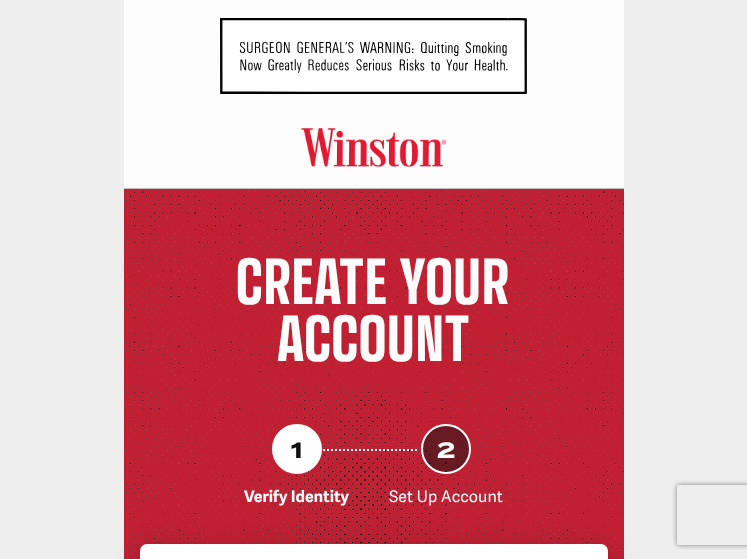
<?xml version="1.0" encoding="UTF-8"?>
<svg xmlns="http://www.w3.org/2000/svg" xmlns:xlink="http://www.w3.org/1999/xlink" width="747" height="559">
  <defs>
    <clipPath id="clip1"><path d="M 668 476 h 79 v 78 h -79 z m 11 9 h 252 c 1 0 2 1 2 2 v 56 c 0 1 -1 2 -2 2 h -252 c -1 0 -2 -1 -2 -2 v -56 c 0 -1 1 -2 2 -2 z" clip-rule="evenodd" /></clipPath>
  </defs>
  <rect width="100%" height="100%" fill="#eeeeee" />
  <rect x="124" width="500" height="188" fill="#fcfcfc" />
  <image x="220" y="18" width="307" height="76" xlink:href="image1.png" />
  <image x="301" y="128" width="146" height="39" xlink:href="image2.png" />
  <rect x="124" y="188" width="500" height="1" fill="#c1c1c1" />
  <rect x="124" y="189" width="500" height="370" fill="#c12033" />
  <image x="125" y="189" width="499" height="370" xlink:href="image3.png" />
  <circle cx="297" cy="449" r="24" fill="#ffffff" stroke="#ffffff" stroke-width="2" />
  <path d="M 319 450 h 100" fill="none" stroke="#ffffff" stroke-width="2" stroke-dasharray="2 2" />
  <circle cx="446" cy="449" r="24" fill="#111111" fill-opacity="0.5" stroke="#ffffff" stroke-width="2" />
  <rect x="140" y="554" width="468" height="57" rx="7" fill="#000000" fill-opacity="0.25" filter="blur(15px)" />
  <rect x="140" y="544" width="468" height="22" rx="7" fill="#ffffff" />
  <g clip-path="url(#clip1)">
    <rect x="677" y="485" width="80" height="60" rx="2" fill="#808080" filter="blur(2.5px)" />
  </g>
  <text x="236" y="304" style="font-family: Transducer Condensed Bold; font-size: 64px; font-weight: bold; letter-spacing: 0.6px; fill: #fcfcfc">CREATE YOUR</text>
  <text x="277" y="361" style="font-family: Transducer Condensed Bold; font-size: 64px; font-weight: bold; letter-spacing: 0.6px; fill: #fcfcfc">ACCOUNT</text>
  <text x="291" y="458" style="font-family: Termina; font-size: 22px; font-weight: bold; fill: #111111">1</text>
  <text x="244" y="502" style="font-family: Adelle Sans; font-size: 16px; font-weight: bold; fill: #fcfcfc">Verify Identity</text>
  <text x="437" y="458" style="font-family: Termina; font-size: 22px; font-weight: bold; fill: #fcfcfc">2</text>
  <text x="389" y="502" style="font-family: Adelle Sans; font-size: 16px; fill: #fcfcfc">Set Up Account</text>
</svg>
